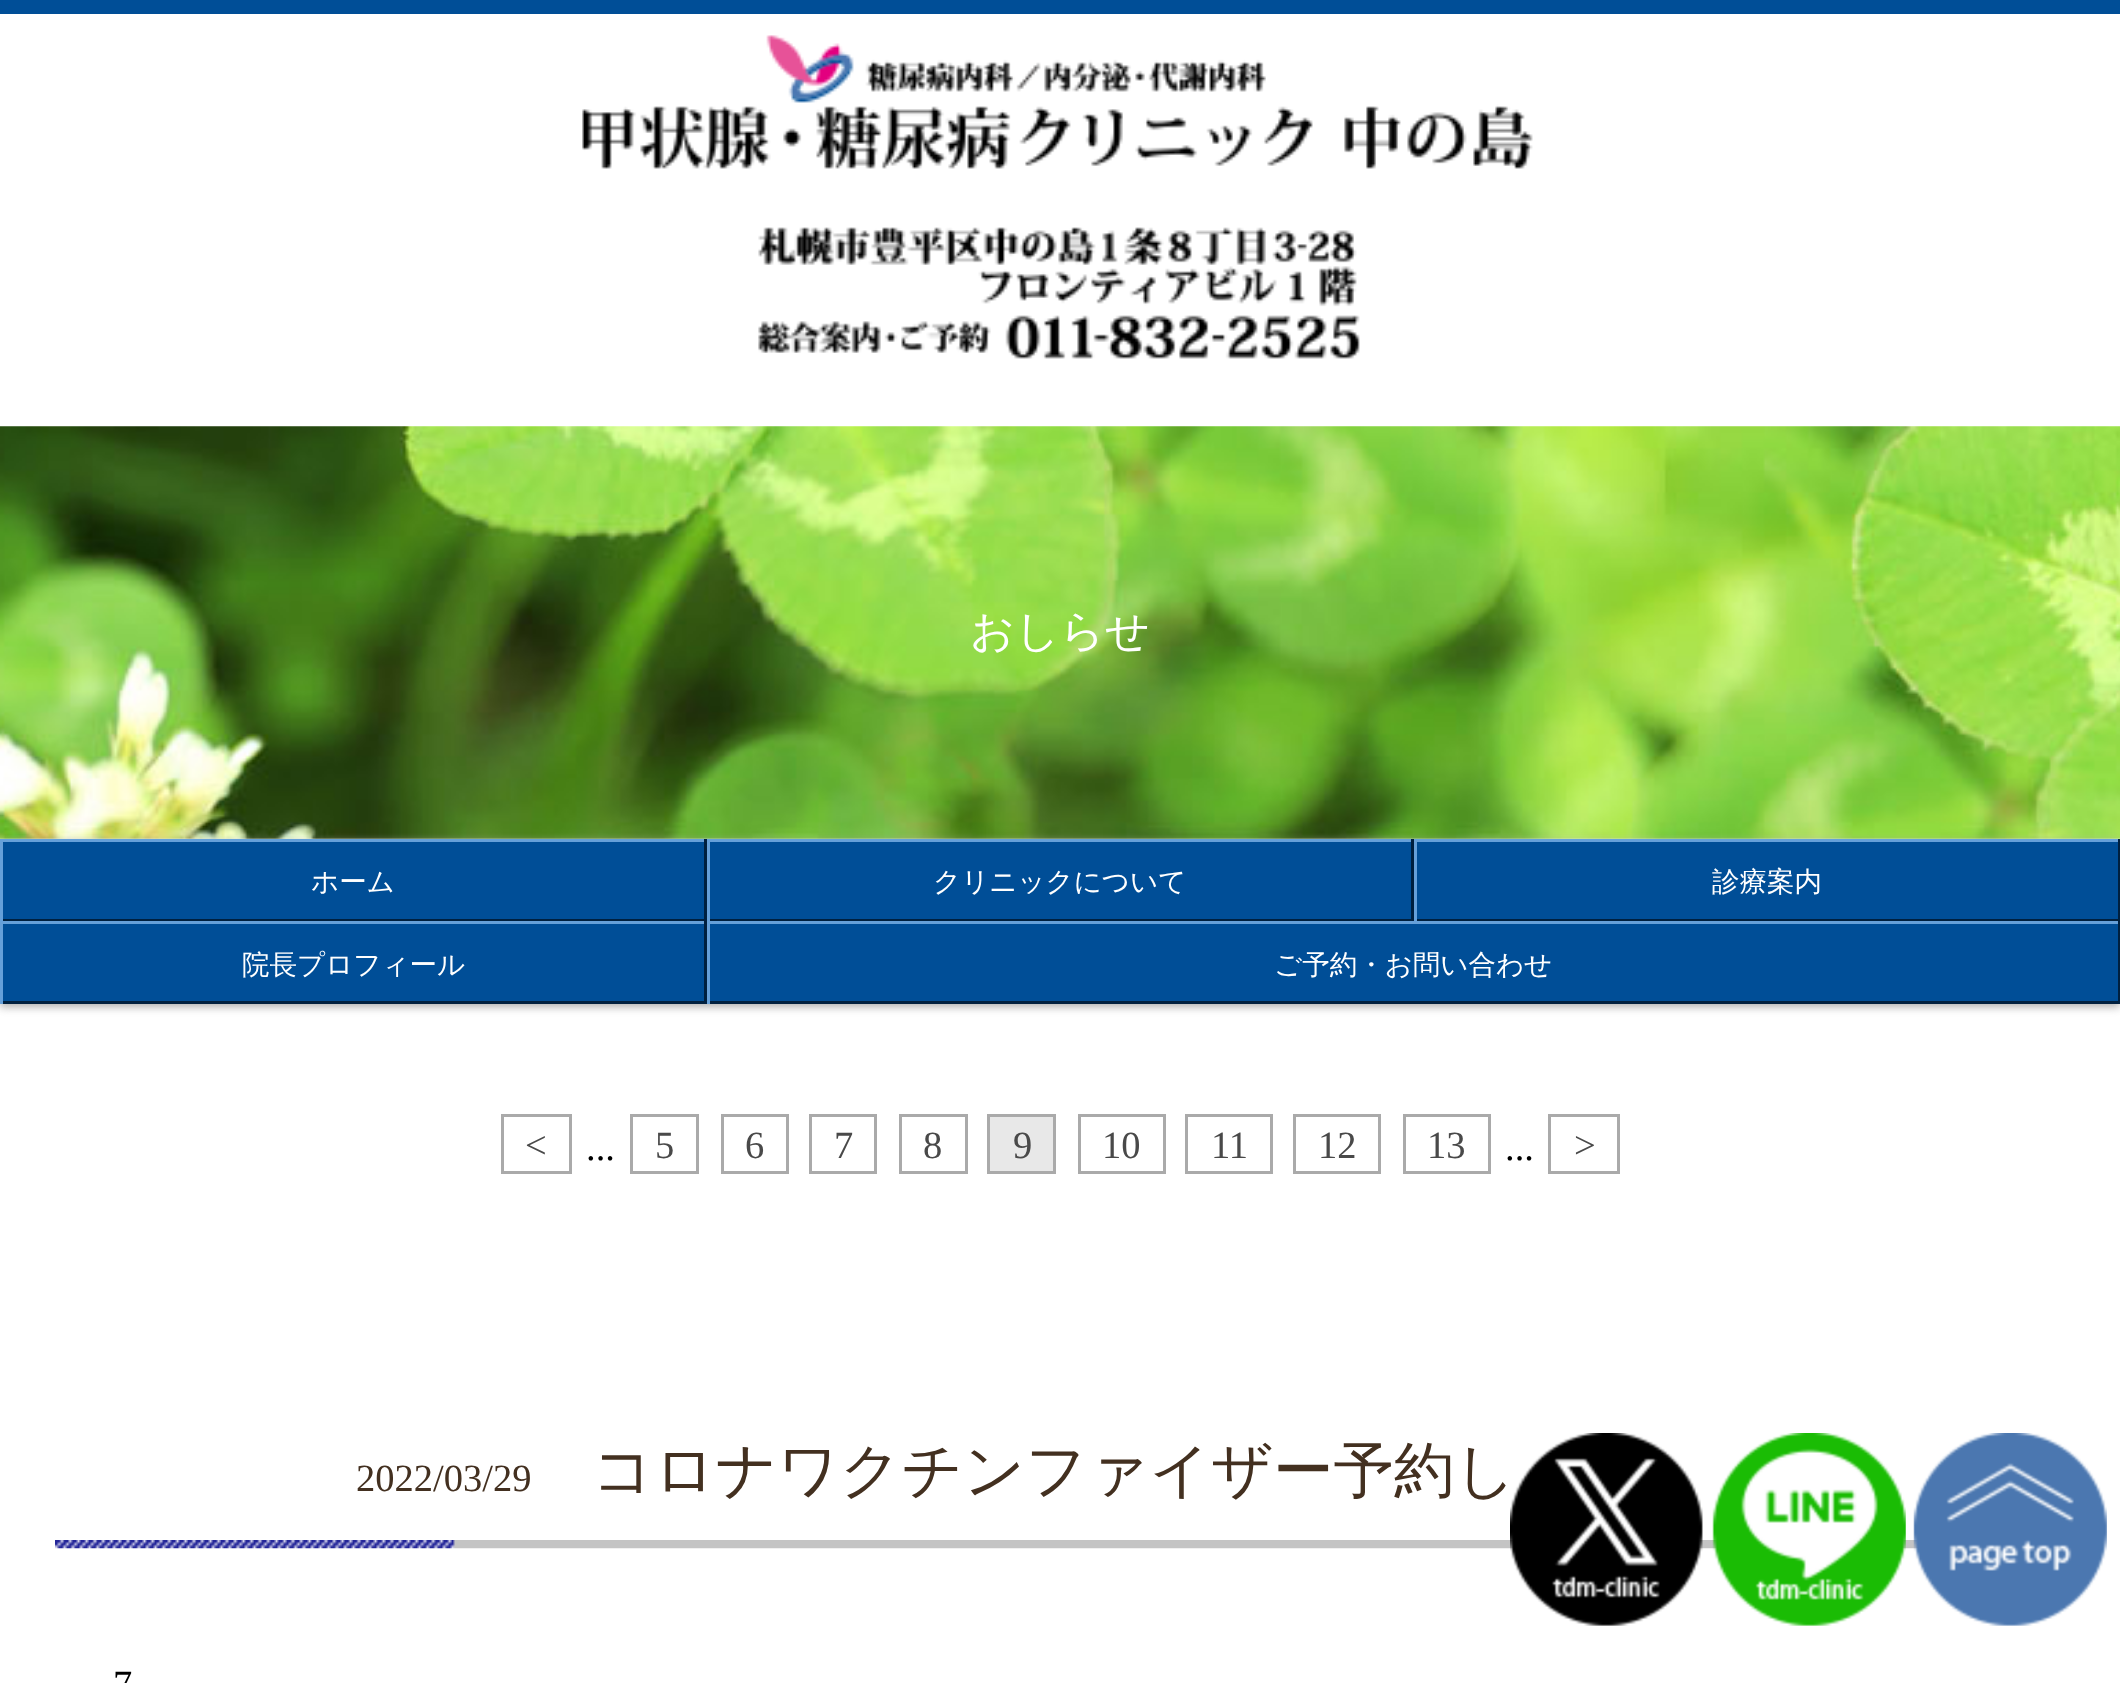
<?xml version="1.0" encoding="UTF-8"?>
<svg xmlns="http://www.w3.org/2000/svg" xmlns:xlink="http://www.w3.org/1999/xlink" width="2120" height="1683">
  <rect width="100%" height="100%" fill="#ffffff" />
  <rect width="2120" height="14" fill="#004e97" />
  <image x="582" y="35" width="951" height="134" xlink:href="image1.png" />
  <image x="758" y="227" width="602" height="132" xlink:href="image2.png" />
  <image x="0" y="426" width="2120" height="413" xlink:href="image3.png" />
  <rect y="842" width="2120" height="165" fill="#afafaf" filter="blur(4px)" />
  <rect x="3" y="842" width="701" height="77" fill="#004e97" />
  <rect y="839" width="2120" height="3" fill="#66a0d9" />
  <rect x="704" y="839" width="3" height="82" fill="#00203f" />
  <rect y="919" width="707" height="2" fill="#00203f" />
  <rect y="839" width="3" height="82" fill="#66a0d9" />
  <rect x="710" y="842" width="701" height="77" fill="#004e97" />
  <rect x="1411" y="839" width="3" height="82" fill="#00203f" />
  <rect x="707" y="919" width="707" height="2" fill="#00203f" />
  <rect x="707" y="839" width="3" height="82" fill="#66a0d9" />
  <rect x="1417" y="842" width="701" height="77" fill="#004e97" />
  <rect x="2118" y="839" width="2" height="82" fill="#00203f" />
  <rect x="1414" y="919" width="706" height="2" fill="#00203f" />
  <rect x="1414" y="839" width="3" height="82" fill="#66a0d9" />
  <rect x="3" y="924" width="701" height="77" fill="#004e97" />
  <rect y="921" width="2120" height="3" fill="#66a0d9" />
  <rect x="704" y="921" width="3" height="83" fill="#00203f" />
  <rect y="1001" width="707" height="3" fill="#00203f" />
  <rect y="921" width="3" height="83" fill="#66a0d9" />
  <rect x="710" y="924" width="1408" height="77" fill="#004e97" />
  <rect x="2118" y="921" width="2" height="83" fill="#00203f" />
  <rect x="707" y="1001" width="1413" height="3" fill="#00203f" />
  <rect x="707" y="921" width="3" height="83" fill="#66a0d9" />
  <rect x="502.5" y="1115.5" width="68" height="57" fill="none" stroke="#aaaaaa" stroke-width="3" />
  <rect x="631.5" y="1115.5" width="66" height="57" fill="none" stroke="#aaaaaa" stroke-width="3" />
  <rect x="722.5" y="1115.5" width="65" height="57" fill="none" stroke="#aaaaaa" stroke-width="3" />
  <rect x="810.5" y="1115.5" width="65" height="57" fill="none" stroke="#aaaaaa" stroke-width="3" />
  <rect x="900.5" y="1115.5" width="66" height="57" fill="none" stroke="#aaaaaa" stroke-width="3" />
  <rect x="988.5" y="1115.5" width="66" height="57" fill="#e8e8e8" stroke="#aaaaaa" stroke-width="3" />
  <rect x="1079.5" y="1115.5" width="85" height="57" fill="none" stroke="#aaaaaa" stroke-width="3" />
  <rect x="1186.5" y="1115.5" width="85" height="57" fill="none" stroke="#aaaaaa" stroke-width="3" />
  <rect x="1294.5" y="1115.5" width="85" height="57" fill="none" stroke="#aaaaaa" stroke-width="3" />
  <rect x="1404.5" y="1115.5" width="85" height="57" fill="none" stroke="#aaaaaa" stroke-width="3" />
  <rect x="1549.5" y="1115.5" width="69" height="57" fill="none" stroke="#aaaaaa" stroke-width="3" />
  <image x="55" y="1540" width="1863" height="9" xlink:href="image4.png" />
  <image x="1510" y="1433" width="193" height="193" xlink:href="image5.png" />
  <image x="1712" y="1433" width="194" height="193" xlink:href="image6.png" />
  <image x="1913" y="1433" width="194" height="193" xlink:href="image7.png" />
  <text x="970" y="646" style="font-family: WenQuanYi Zen Hei; font-size: 44px; font-weight: 500; fill: #ffffff">おしらせ</text>
  <text x="311" y="891" style="font-family: WenQuanYi Zen Hei; font-size: 27.5px; font-weight: 500; fill: #ffffff">ホーム</text>
  <text x="933" y="891" style="font-family: WenQuanYi Zen Hei; font-size: 27.5px; font-weight: 500; fill: #ffffff">クリニックについて</text>
  <text x="1712" y="891" style="font-family: WenQuanYi Zen Hei; font-size: 27.5px; font-weight: 500; fill: #ffffff">診療案内</text>
  <text x="242" y="974" style="font-family: WenQuanYi Zen Hei; font-size: 27.5px; font-weight: 500; fill: #ffffff">院長プロフィール</text>
  <text x="1274" y="974" style="font-family: WenQuanYi Zen Hei; font-size: 27.5px; font-weight: 500; fill: #ffffff">ご予約・お問い合わせ</text>
  <text x="525" y="1158" style="font-family: Liberation Serif; font-size: 38.5px; fill: #494949">&lt;</text>
  <text x="655" y="1158" style="font-family: Liberation Serif; font-size: 38.5px; fill: #494949">5</text>
  <text x="745" y="1158" style="font-family: Liberation Serif; font-size: 38.5px; fill: #494949">6</text>
  <text x="834" y="1158" style="font-family: Liberation Serif; font-size: 38.5px; fill: #494949">7</text>
  <text x="923" y="1158" style="font-family: Liberation Serif; font-size: 38.5px; fill: #494949">8</text>
  <text x="1013" y="1158" style="font-family: Liberation Serif; font-size: 38.5px; fill: #494949">9</text>
  <text x="1102" y="1158" style="font-family: Liberation Serif; font-size: 38.5px; fill: #494949">10</text>
  <text x="1211" y="1158" style="font-family: Liberation Serif; font-size: 38.5px; fill: #494949">11</text>
  <text x="1318" y="1158" style="font-family: Liberation Serif; font-size: 38.5px; fill: #494949">12</text>
  <text x="1427" y="1158" style="font-family: Liberation Serif; font-size: 38.5px; fill: #494949">13</text>
  <text x="1574" y="1158" style="font-family: Liberation Serif; font-size: 38.5px; fill: #494949">&gt;</text>
  <text x="586" y="1160" style="font-family: Liberation Serif; font-size: 38.5px; fill: #000000">...</text>
  <text x="1505" y="1160" style="font-family: Liberation Serif; font-size: 38.5px; fill: #000000">...</text>
  <text x="356" y="1491" style="font-family: Liberation Serif; font-size: 38.5px; fill: #433020">2022/03/29</text>
  <text x="592" y="1491" style="font-family: WenQuanYi Zen Hei; font-size: 60.5px; font-weight: 500; fill: #433020">コロナワクチンファイザー予約し</text>
  <text x="113" y="1697" style="font-family: Liberation Serif; font-size: 38.5px; fill: #000000">7</text>
</svg>
